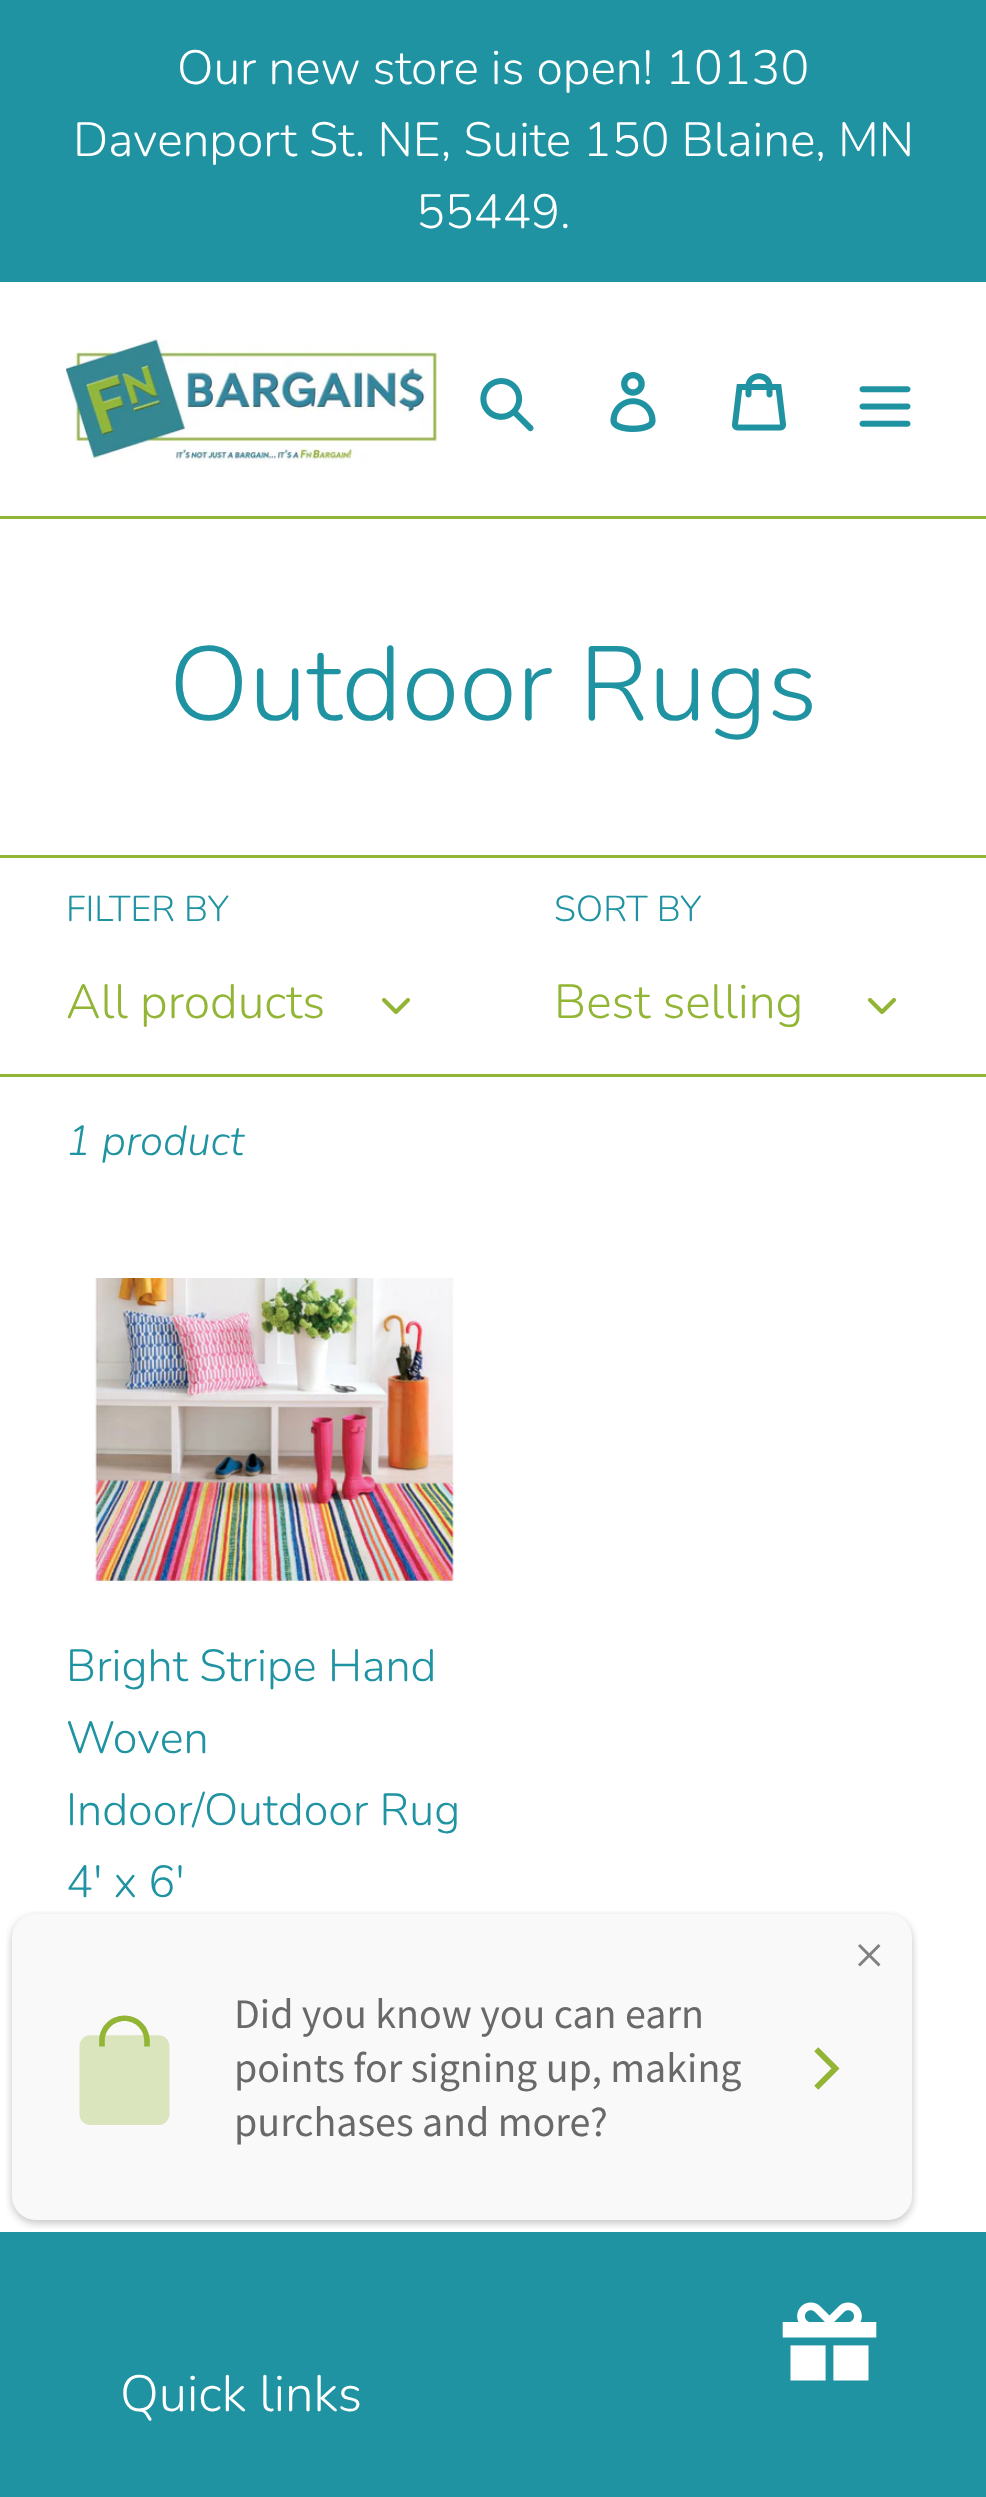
<?xml version="1.0" encoding="UTF-8"?>
<svg xmlns="http://www.w3.org/2000/svg" xmlns:xlink="http://www.w3.org/1999/xlink" width="986" height="2497">
  <rect width="100%" height="100%" fill="#ffffff" />
  <rect width="986" height="282" fill="#2093a2" />
  <rect y="516" width="986" height="3" fill="#92b535" />
  <image x="66" y="336" width="372" height="126" xlink:href="image1.png" />
  <image x="480" y="378" width="54" height="54" xlink:href="image2.png" />
  <image x="610" y="372" width="46" height="60" xlink:href="image3.png" />
  <image x="732" y="373" width="54" height="58" xlink:href="image4.png" />
  <image x="859" y="386" width="52" height="41" xlink:href="image5.png" />
  <rect y="855" width="986" height="3" fill="#92b535" />
  <image x="382" y="998" width="28" height="16" xlink:href="image6.png" />
  <image x="868" y="998" width="28" height="16" xlink:href="image6.png" />
  <rect y="1074" width="986" height="3" fill="#92b535" />
  <image x="92" y="1278" width="363" height="306" xlink:href="image7.png" />
  <rect y="2232" width="986" height="265" fill="#2093a2" />
  <image x="6" y="1911" width="912" height="318" xlink:href="image8.png" />
  <image x="782" y="2302" width="95" height="79" xlink:href="image9.png" />
  <text x="177" y="84" style="font-family: Nunito; font-size: 48px; font-weight: 300; fill: #ffffff">Our new store is open! 10130</text>
  <text x="73" y="156" style="font-family: Nunito; font-size: 48px; font-weight: 300; fill: #ffffff">Davenport St. NE, Suite 150 Blaine, MN</text>
  <text x="416" y="228" style="font-family: Nunito; font-size: 48px; font-weight: 300; fill: #ffffff">55449.</text>
  <text x="169" y="720" style="font-family: Nunito; font-size: 105px; font-weight: 300; fill: #2093a2">Outdoor Rugs</text>
  <text x="66" y="921" style="font-family: Nunito; font-size: 36px; font-weight: 300; fill: #2093a2">FILTER BY</text>
  <text x="66" y="1018" style="font-family: Nunito; font-size: 48px; font-weight: 300; fill: #92b535">All products</text>
  <text x="554" y="921" style="font-family: Nunito; font-size: 36px; font-weight: 300; fill: #2093a2">SORT BY</text>
  <text x="554" y="1018" style="font-family: Nunito; font-size: 48px; font-weight: 300; fill: #92b535">Best selling</text>
  <text x="66" y="1155" style="font-family: Nunito; font-size: 42px; font-weight: 300; font-style: italic; fill: #2093a2">1 product</text>
  <text x="66" y="1681" style="font-family: Nunito; font-size: 45px; font-weight: 300; fill: #2093a2">Bright Stripe Hand</text>
  <text x="66" y="1753" style="font-family: Nunito; font-size: 45px; font-weight: 300; fill: #2093a2">Woven</text>
  <text x="66" y="1825" style="font-family: Nunito; font-size: 45px; font-weight: 300; fill: #2093a2">Indoor/Outdoor Rug</text>
  <text x="66" y="1897" style="font-family: Nunito; font-size: 45px; font-weight: 300; fill: #2093a2">4' x 6'</text>
  <text x="120" y="2411" style="font-family: Nunito; font-size: 51px; font-weight: 300; fill: #ffffff">Quick links</text>
</svg>
